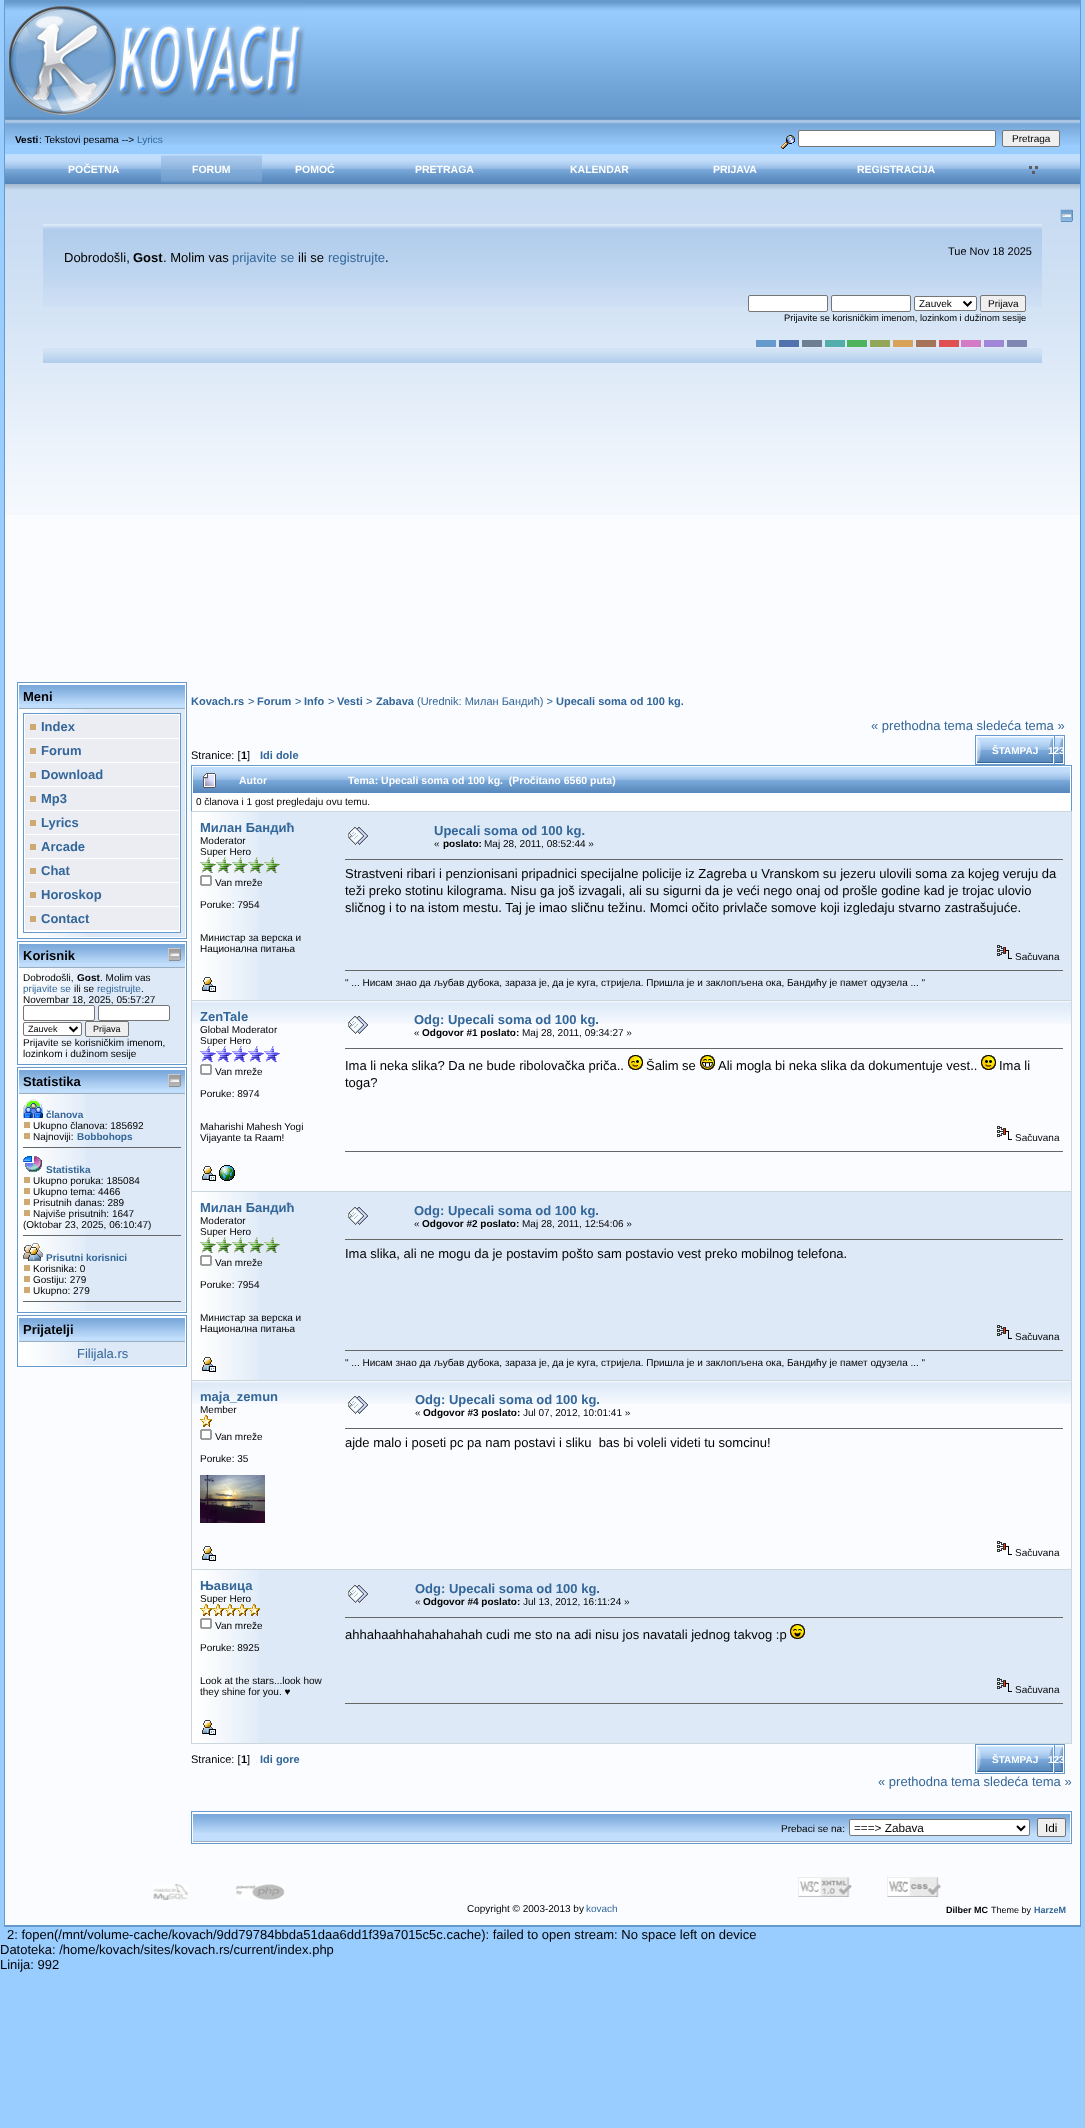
<?xml version="1.0" encoding="UTF-8"?>
<svg xmlns="http://www.w3.org/2000/svg" xmlns:xlink="http://www.w3.org/1999/xlink" width="1085" height="2128">
  <rect width="100%" height="100%" fill="#99ccff" />
  <rect x="5" y="515" width="1075" height="1410" fill="#fafcff" />
  <rect x="1080" width="1" height="1927" fill="#6699cc" />
  <rect x="4" y="1925" width="1077" height="2" fill="#6699cc" />
  <rect x="4" width="1" height="1927" fill="#6699cc" />
  <rect x="305" width="775" height="3" fill="#6699cc" />
  <image x="5" y="3" width="1075" height="117" xlink:href="image1.png" />
  <image x="5" y="0" width="300" height="119" xlink:href="image2.png" />
  <image x="5" y="120" width="1075" height="25" xlink:href="image3.png" />
  <image x="781" y="135" width="14" height="14" xlink:href="image4.png" />
  <rect x="798.5" y="130.5" width="197" height="16" rx="1.5" fill="#ffffff" stroke="#767676" />
  <rect x="1002.5" y="130.5" width="57" height="16" rx="1.5" fill="#efefef" stroke="#767676" />
  <image x="1019" y="154" width="61" height="30" xlink:href="image5.png" />
  <image x="5" y="154" width="20" height="30" xlink:href="image6.png" />
  <image x="25" y="154" width="136" height="30" xlink:href="image7.png" />
  <image x="161" y="154" width="101" height="30" xlink:href="image8.png" />
  <image x="262" y="154" width="105" height="30" xlink:href="image9.png" />
  <image x="367" y="154" width="155" height="30" xlink:href="image10.png" />
  <image x="522" y="154" width="155" height="30" xlink:href="image10.png" />
  <image x="677" y="154" width="116" height="30" xlink:href="image11.png" />
  <image x="793" y="154" width="206" height="30" xlink:href="image12.png" />
  <image x="999" y="154" width="20" height="30" xlink:href="image6.png" />
  <image x="1029" y="166" width="9" height="8" xlink:href="image13.png" />
  <image x="5" y="184" width="1075" height="331" xlink:href="image14.png" />
  <image x="1060" y="209" width="13" height="13" xlink:href="image15.png" />
  <image x="43" y="224" width="999" height="83" xlink:href="image16.png" />
  <rect x="748.5" y="295.5" width="79" height="16" rx="1.5" fill="#ffffff" stroke="#767676" />
  <rect x="831.5" y="295.5" width="79" height="16" rx="1.5" fill="#ffffff" stroke="#767676" />
  <rect x="914.5" y="296.5" width="62" height="14" rx="1.5" fill="#ffffff" stroke="#767676" />
  <path d="M 963.5 301.5 l 4 4 l 4 -4" fill="none" stroke="#000000" stroke-width="2" />
  <rect x="980.5" y="295.5" width="45" height="16" rx="1.5" fill="#efefef" stroke="#767676" />
  <image x="43" y="348" width="999" height="15" xlink:href="image17.png" />
  <rect x="756" y="340" width="20" height="7" fill="#6699cc" />
  <rect x="779" y="340" width="20" height="7" fill="#5371ad" />
  <rect x="802" y="340" width="20" height="7" fill="#6c7f93" />
  <rect x="825" y="340" width="20" height="7" fill="#53adad" />
  <rect x="847" y="340" width="20" height="7" fill="#4db45d" />
  <rect x="870" y="340" width="20" height="7" fill="#93a659" />
  <rect x="893" y="340" width="20" height="7" fill="#d8a259" />
  <rect x="916" y="340" width="20" height="7" fill="#a67259" />
  <rect x="939" y="340" width="20" height="7" fill="#e15050" />
  <rect x="961" y="340" width="20" height="7" fill="#d47bc5" />
  <rect x="984" y="340" width="20" height="7" fill="#a185d6" />
  <rect x="1007" y="340" width="20" height="7" fill="#7f88b2" />
  <rect x="17.5" y="682.5" width="169" height="256" fill="#ffffff" stroke="#6699cc" />
  <rect x="19" y="704" width="166" height="4" fill="#c1defc" />
  <image x="19" y="685" width="166" height="19" xlink:href="image18.png" />
  <rect x="19" y="708" width="166" height="1" fill="#9baebf" />
  <rect x="86" y="709" width="99" height="228" fill="#dde9f7" />
  <image x="19" y="709" width="67" height="228" xlink:href="image19.png" />
  <rect x="29" y="714" width="151" height="218" fill="#ffffff" />
  <rect x="23.5" y="713.5" width="157" height="219" fill="none" stroke="#6699cc" />
  <rect x="25" y="715" width="154" height="23" fill="#ecedf3" />
  <rect x="30" y="724" width="6" height="6" fill="#ceaa72" />
  <rect x="25" y="739" width="154" height="23" fill="#ecedf3" />
  <rect x="30" y="748" width="6" height="6" fill="#ceaa72" />
  <rect x="25" y="763" width="154" height="23" fill="#ecedf3" />
  <rect x="30" y="772" width="6" height="6" fill="#ceaa72" />
  <rect x="25" y="787" width="154" height="23" fill="#ecedf3" />
  <rect x="30" y="796" width="6" height="6" fill="#ceaa72" />
  <rect x="25" y="811" width="154" height="23" fill="#ecedf3" />
  <rect x="30" y="820" width="6" height="6" fill="#ceaa72" />
  <rect x="25" y="835" width="154" height="23" fill="#ecedf3" />
  <rect x="30" y="844" width="6" height="6" fill="#ceaa72" />
  <rect x="25" y="859" width="154" height="23" fill="#ecedf3" />
  <rect x="30" y="868" width="6" height="6" fill="#ceaa72" />
  <rect x="25" y="883" width="154" height="23" fill="#ecedf3" />
  <rect x="30" y="892" width="6" height="6" fill="#ceaa72" />
  <rect x="25" y="907" width="154" height="23" fill="#ecedf3" />
  <rect x="30" y="916" width="6" height="6" fill="#ceaa72" />
  <rect x="17.5" y="941.5" width="169" height="123" fill="#ffffff" stroke="#6699cc" />
  <rect x="19" y="963" width="166" height="4" fill="#c1defc" />
  <image x="19" y="944" width="166" height="19" xlink:href="image18.png" />
  <rect x="19" y="967" width="166" height="1" fill="#9baebf" />
  <image x="168" y="948" width="13" height="13" xlink:href="image20.png" />
  <rect x="86" y="968" width="99" height="95" fill="#dde9f7" />
  <image x="19" y="968" width="67" height="95" xlink:href="image21.png" />
  <rect x="23.5" y="1005.5" width="71" height="15" rx="1.5" fill="#ffffff" stroke="#767676" />
  <rect x="98.5" y="1005.5" width="71" height="15" rx="1.5" fill="#ffffff" stroke="#767676" />
  <rect x="23.5" y="1022.5" width="58" height="13" rx="1.5" fill="#ffffff" stroke="#767676" />
  <path d="M 69.5 1027 l 4 4 l 4 -4" fill="none" stroke="#000000" stroke-width="2" />
  <rect x="85.5" y="1021.5" width="43" height="15" rx="1.5" fill="#efefef" stroke="#767676" />
  <rect x="17.5" y="1067.5" width="169" height="245" fill="#ffffff" stroke="#6699cc" />
  <rect x="19" y="1089" width="166" height="4" fill="#c1defc" />
  <image x="19" y="1070" width="166" height="19" xlink:href="image18.png" />
  <rect x="19" y="1093" width="166" height="1" fill="#9baebf" />
  <image x="168" y="1074" width="13" height="13" xlink:href="image20.png" />
  <rect x="86" y="1094" width="99" height="217" fill="#dde9f7" />
  <image x="19" y="1094" width="67" height="217" xlink:href="image22.png" />
  <image x="23" y="1099" width="20" height="19" xlink:href="image23.png" />
  <rect x="24" y="1122" width="6" height="6" fill="#ceaa72" />
  <rect x="24" y="1133" width="6" height="6" fill="#ceaa72" />
  <rect x="23" y="1147" width="158" height="1" fill="#666666" />
  <image x="23" y="1156" width="19" height="16" xlink:href="image24.png" />
  <rect x="24" y="1177" width="6" height="6" fill="#ceaa72" />
  <rect x="24" y="1188" width="6" height="6" fill="#ceaa72" />
  <rect x="24" y="1199" width="6" height="6" fill="#ceaa72" />
  <rect x="24" y="1210" width="6" height="6" fill="#ceaa72" />
  <rect x="23" y="1235" width="158" height="1" fill="#666666" />
  <image x="23" y="1243" width="20" height="18" xlink:href="image25.png" />
  <rect x="24" y="1265" width="6" height="6" fill="#ceaa72" />
  <rect x="24" y="1276" width="6" height="6" fill="#ceaa72" />
  <rect x="24" y="1287" width="6" height="6" fill="#ceaa72" />
  <rect x="23" y="1301" width="158" height="1" fill="#666666" />
  <rect x="17.5" y="1315.5" width="169" height="51" fill="#ffffff" stroke="#6699cc" />
  <rect x="19" y="1337" width="166" height="4" fill="#c1defc" />
  <image x="19" y="1318" width="166" height="19" xlink:href="image18.png" />
  <rect x="19" y="1341" width="166" height="1" fill="#9baebf" />
  <rect x="86" y="1342" width="99" height="23" fill="#dde9f7" />
  <image x="19" y="1342" width="67" height="23" xlink:href="image26.png" />
  <image x="975" y="735" width="10" height="30" xlink:href="image27.png" />
  <image x="985" y="735" width="60" height="30" xlink:href="image28.png" />
  <image x="1045" y="735" width="20" height="30" xlink:href="image29.png" />
  <rect x="192" y="766" width="879" height="45" fill="#ffffff" />
  <rect x="191" y="765" width="881" height="1" fill="#6699cc" />
  <rect x="1071" y="765" width="1" height="46" fill="#6699cc" />
  <rect x="191" y="765" width="1" height="46" fill="#6699cc" />
  <image x="193" y="767" width="36" height="26" xlink:href="image30.png" />
  <image x="203" y="773" width="13" height="15" xlink:href="image31.png" />
  <image x="229" y="767" width="113" height="26" xlink:href="image32.png" />
  <image x="342" y="767" width="728" height="26" xlink:href="image33.png" />
  <rect x="191" y="811" width="881" height="933" fill="#ccd7dd" />
  <rect x="259" y="812" width="812" height="188" fill="#dde9f7" />
  <image x="192" y="812" width="67" height="188" xlink:href="image34.png" />
  <image x="264" y="857" width="16" height="16" xlink:href="image39.png" />
  <image x="200" y="875" width="12" height="11" xlink:href="image40.png" />
  <image x="202" y="977" width="14" height="15" xlink:href="image41.png" />
  <image x="348" y="827" width="20" height="18" xlink:href="image42.png" />
  <rect x="345" y="859" width="718" height="1" fill="#666666" />
  <image x="997" y="945" width="15" height="14" xlink:href="image43.png" />
  <rect x="345" y="970" width="718" height="1" fill="#666666" />
  <rect x="192" y="1024" width="879" height="167" fill="#fafcff" />
  <image x="192" y="1001" width="879" height="23" xlink:href="image44.png" />
  <image x="264" y="1046" width="16" height="16" xlink:href="image46.png" />
  <image x="200" y="1064" width="12" height="11" xlink:href="image47.png" />
  <image x="202" y="1166" width="14" height="15" xlink:href="image48.png" />
  <image x="219" y="1165" width="16" height="16" xlink:href="image49.png" />
  <image x="348" y="1016" width="20" height="18" xlink:href="image50.png" />
  <rect x="345" y="1048" width="718" height="1" fill="#666666" />
  <image x="628" y="1055" width="15" height="15" xlink:href="image51.png" />
  <image x="700" y="1055" width="15" height="15" xlink:href="image52.png" />
  <image x="981" y="1055" width="15" height="15" xlink:href="image53.png" />
  <image x="997" y="1126" width="15" height="14" xlink:href="image54.png" />
  <rect x="345" y="1151" width="718" height="1" fill="#666666" />
  <rect x="259" y="1192" width="812" height="188" fill="#dde9f7" />
  <image x="192" y="1192" width="67" height="188" xlink:href="image34.png" />
  <image x="264" y="1237" width="16" height="16" xlink:href="image39.png" />
  <image x="200" y="1255" width="12" height="11" xlink:href="image40.png" />
  <image x="202" y="1357" width="14" height="15" xlink:href="image41.png" />
  <image x="348" y="1207" width="20" height="18" xlink:href="image42.png" />
  <rect x="345" y="1239" width="718" height="1" fill="#666666" />
  <image x="997" y="1325" width="15" height="14" xlink:href="image43.png" />
  <rect x="345" y="1350" width="718" height="1" fill="#666666" />
  <rect x="192" y="1404" width="879" height="165" fill="#fafcff" />
  <image x="192" y="1381" width="879" height="23" xlink:href="image44.png" />
  <image x="200" y="1415" width="12" height="12" xlink:href="image55.png" />
  <image x="200" y="1429" width="12" height="11" xlink:href="image47.png" />
  <image x="200" y="1475" width="65" height="48" xlink:href="image56.png" />
  <image x="202" y="1546" width="14" height="15" xlink:href="image48.png" />
  <image x="348" y="1396" width="20" height="18" xlink:href="image50.png" />
  <rect x="345" y="1428" width="718" height="1" fill="#666666" />
  <image x="997" y="1541" width="15" height="14" xlink:href="image54.png" />
  <rect x="259" y="1570" width="812" height="173" fill="#dde9f7" />
  <image x="192" y="1570" width="67" height="173" xlink:href="image57.png" />
  <image x="200" y="1618" width="12" height="11" xlink:href="image40.png" />
  <image x="202" y="1720" width="14" height="15" xlink:href="image41.png" />
  <image x="348" y="1585" width="20" height="18" xlink:href="image42.png" />
  <rect x="345" y="1617" width="718" height="1" fill="#666666" />
  <image x="790" y="1624" width="15" height="15" xlink:href="image63.png" />
  <image x="997" y="1678" width="15" height="14" xlink:href="image43.png" />
  <rect x="345" y="1703" width="718" height="1" fill="#666666" />
  <image x="975" y="1744" width="10" height="30" xlink:href="image27.png" />
  <image x="985" y="1744" width="60" height="30" xlink:href="image28.png" />
  <image x="1045" y="1744" width="20" height="30" xlink:href="image29.png" />
  <rect x="191.5" y="1811.5" width="880" height="32" fill="#ffffff" stroke="#6699cc" />
  <rect x="193" y="1833" width="877" height="8" fill="#c1defc" />
  <image x="193" y="1814" width="877" height="19" xlink:href="image64.png" />
  <rect x="193" y="1841" width="877" height="1" fill="#9baebf" />
  <rect x="849.5" y="1819.5" width="180" height="16" rx="1.5" fill="#ffffff" stroke="#767676" />
  <path d="M 1017 1826 l 4 4 l 4 -4" fill="none" stroke="#000000" stroke-width="2" />
  <rect x="1037.5" y="1818.5" width="28" height="18" rx="1.5" fill="#efefef" stroke="#767676" />
  <image x="153" y="1884" width="36" height="16" xlink:href="image65.png" />
  <image x="235" y="1884" width="50" height="16" xlink:href="image66.png" />
  <image x="798" y="1877" width="54" height="20" xlink:href="image67.png" />
  <image x="887" y="1877" width="54" height="20" xlink:href="image68.png" />
  <text x="15" y="143" style="font-family: Liberation Sans; font-size: 10px; font-weight: bold; fill: #000000">Vesti</text>
  <text x="39" y="143" style="font-family: Liberation Sans; font-size: 10px; fill: #000000">: Tekstovi pesama --&gt;</text>
  <text x="137" y="143" style="font-family: Liberation Sans; font-size: 10px; fill: #336699">Lyrics</text>
  <text x="1012" y="142" style="font-family: Liberation Sans; font-size: 10px; fill: #000000">Pretraga</text>
  <text x="68" y="173" style="font-family: Liberation Sans; font-size: 10.5px; font-weight: bold; fill: #ffffff">POČETNA</text>
  <text x="192" y="173" style="font-family: Liberation Sans; font-size: 10.5px; font-weight: bold; fill: #ffffff">FORUM</text>
  <text x="295" y="173" style="font-family: Liberation Sans; font-size: 10.5px; font-weight: bold; fill: #ffffff">POMOĆ</text>
  <text x="415" y="173" style="font-family: Liberation Sans; font-size: 10.5px; font-weight: bold; fill: #ffffff">PRETRAGA</text>
  <text x="570" y="173" style="font-family: Liberation Sans; font-size: 10.5px; font-weight: bold; fill: #ffffff">KALENDAR</text>
  <text x="713" y="173" style="font-family: Liberation Sans; font-size: 10.5px; font-weight: bold; fill: #ffffff">PRIJAVA</text>
  <text x="857" y="173" style="font-family: Liberation Sans; font-size: 10.5px; font-weight: bold; fill: #ffffff">REGISTRACIJA</text>
  <text x="64" y="262" style="font-family: Liberation Sans; font-size: 13px; fill: #000000">Dobrodošli,</text>
  <text x="133" y="262" style="font-family: Liberation Sans; font-size: 13px; font-weight: bold; fill: #000000">Gost</text>
  <text x="163" y="262" style="font-family: Liberation Sans; font-size: 13px; fill: #000000">. Molim vas</text>
  <text x="232" y="262" style="font-family: Liberation Sans; font-size: 13px; fill: #336699">prijavite se</text>
  <text x="298" y="262" style="font-family: Liberation Sans; font-size: 13px; fill: #000000">ili se</text>
  <text x="328" y="262" style="font-family: Liberation Sans; font-size: 13px; fill: #336699">registrujte</text>
  <text x="385" y="262" style="font-family: Liberation Sans; font-size: 13px; fill: #000000">.</text>
  <text x="948" y="255" style="font-family: Liberation Sans; font-size: 11px; fill: #000000">Tue Nov 18 2025</text>
  <text x="919" y="307" style="font-family: Liberation Sans; font-size: 10px; fill: #000000">Zauvek</text>
  <text x="988" y="307" style="font-family: Liberation Sans; font-size: 10px; fill: #000000">Prijava</text>
  <text x="784" y="321" style="font-family: Liberation Sans; font-size: 9.4px; fill: #000000">Prijavite se korisničkim imenom, lozinkom i dužinom sesije</text>
  <text x="23" y="701" style="font-family: Liberation Sans; font-size: 13px; font-weight: bold; fill: #000000">Meni</text>
  <text x="41" y="731" style="font-family: Liberation Sans; font-size: 13px; font-weight: bold; fill: #336699">Index</text>
  <text x="41" y="755" style="font-family: Liberation Sans; font-size: 13px; font-weight: bold; fill: #336699">Forum</text>
  <text x="41" y="779" style="font-family: Liberation Sans; font-size: 13px; font-weight: bold; fill: #336699">Download</text>
  <text x="41" y="803" style="font-family: Liberation Sans; font-size: 13px; font-weight: bold; fill: #336699">Mp3</text>
  <text x="41" y="827" style="font-family: Liberation Sans; font-size: 13px; font-weight: bold; fill: #336699">Lyrics</text>
  <text x="41" y="851" style="font-family: Liberation Sans; font-size: 13px; font-weight: bold; fill: #336699">Arcade</text>
  <text x="41" y="875" style="font-family: Liberation Sans; font-size: 13px; font-weight: bold; fill: #336699">Chat</text>
  <text x="41" y="899" style="font-family: Liberation Sans; font-size: 13px; font-weight: bold; fill: #336699">Horoskop</text>
  <text x="41" y="923" style="font-family: Liberation Sans; font-size: 13px; font-weight: bold; fill: #336699">Contact</text>
  <text x="23" y="960" style="font-family: Liberation Sans; font-size: 13px; font-weight: bold; fill: #000000">Korisnik</text>
  <text x="23" y="981" style="font-family: Liberation Sans; font-size: 10px; fill: #000000">Dobrodošli,</text>
  <text x="77" y="981" style="font-family: Liberation Sans; font-size: 10px; font-weight: bold; fill: #000000">Gost</text>
  <text x="100" y="981" style="font-family: Liberation Sans; font-size: 10px; fill: #000000">. Molim vas</text>
  <text x="23" y="992" style="font-family: Liberation Sans; font-size: 10px; fill: #336699">prijavite se</text>
  <text x="74" y="992" style="font-family: Liberation Sans; font-size: 10px; fill: #000000">ili se</text>
  <text x="97" y="992" style="font-family: Liberation Sans; font-size: 10px; fill: #336699">registrujte</text>
  <text x="141" y="992" style="font-family: Liberation Sans; font-size: 10px; fill: #000000">.</text>
  <text x="23" y="1003" style="font-family: Liberation Sans; font-size: 10px; fill: #000000">Novembar 18, 2025, 05:57:27</text>
  <text x="28" y="1032" style="font-family: Liberation Sans; font-size: 9px; fill: #000000">Zauvek</text>
  <text x="93" y="1032" style="font-family: Liberation Sans; font-size: 9px; fill: #000000">Prijava</text>
  <text x="23" y="1046" style="font-family: Liberation Sans; font-size: 10px; fill: #000000">Prijavite se korisničkim imenom,</text>
  <text x="23" y="1057" style="font-family: Liberation Sans; font-size: 10px; fill: #000000">lozinkom i dužinom sesije</text>
  <text x="23" y="1086" style="font-family: Liberation Sans; font-size: 13px; font-weight: bold; fill: #000000">Statistika</text>
  <text x="46" y="1118" style="font-family: Liberation Sans; font-size: 10px; font-weight: bold; fill: #336699">članova</text>
  <text x="33" y="1129" style="font-family: Liberation Sans; font-size: 10px; fill: #000000">Ukupno članova: 185692</text>
  <text x="33" y="1140" style="font-family: Liberation Sans; font-size: 10px; fill: #000000">Najnoviji:</text>
  <text x="77" y="1140" style="font-family: Liberation Sans; font-size: 10px; font-weight: bold; fill: #336699">Bobbohops</text>
  <text x="46" y="1173" style="font-family: Liberation Sans; font-size: 10px; font-weight: bold; fill: #336699">Statistika</text>
  <text x="33" y="1184" style="font-family: Liberation Sans; font-size: 10px; fill: #000000">Ukupno poruka: 185084</text>
  <text x="33" y="1195" style="font-family: Liberation Sans; font-size: 10px; fill: #000000">Ukupno tema: 4466</text>
  <text x="33" y="1206" style="font-family: Liberation Sans; font-size: 10px; fill: #000000">Prisutnih danas: 289</text>
  <text x="33" y="1217" style="font-family: Liberation Sans; font-size: 10px; fill: #000000">Najviše prisutnih: 1647</text>
  <text x="23" y="1228" style="font-family: Liberation Sans; font-size: 10px; fill: #000000">(Oktobar 23, 2025, 06:10:47)</text>
  <text x="46" y="1261" style="font-family: Liberation Sans; font-size: 10px; font-weight: bold; fill: #336699">Prisutni korisnici</text>
  <text x="33" y="1272" style="font-family: Liberation Sans; font-size: 10px; fill: #000000">Korisnika: 0</text>
  <text x="33" y="1283" style="font-family: Liberation Sans; font-size: 10px; fill: #000000">Gostiju: 279</text>
  <text x="33" y="1294" style="font-family: Liberation Sans; font-size: 10px; fill: #000000">Ukupno: 279</text>
  <text x="23" y="1334" style="font-family: Liberation Sans; font-size: 13px; font-weight: bold; fill: #000000">Prijatelji</text>
  <text x="77" y="1358" style="font-family: Liberation Sans; font-size: 13px; fill: #336699">Filijala.rs</text>
  <text x="191" y="705" style="font-family: Liberation Sans; font-size: 11px; font-weight: bold; fill: #336699">Kovach.rs</text>
  <text x="248" y="705" style="font-family: Liberation Sans; font-size: 11px; fill: #336699">&gt;</text>
  <text x="257" y="705" style="font-family: Liberation Sans; font-size: 11px; font-weight: bold; fill: #336699">Forum</text>
  <text x="295" y="705" style="font-family: Liberation Sans; font-size: 11px; fill: #336699">&gt;</text>
  <text x="304" y="705" style="font-family: Liberation Sans; font-size: 11px; font-weight: bold; fill: #336699">Info</text>
  <text x="328" y="705" style="font-family: Liberation Sans; font-size: 11px; fill: #336699">&gt;</text>
  <text x="337" y="705" style="font-family: Liberation Sans; font-size: 11px; font-weight: bold; fill: #336699">Vesti</text>
  <text x="366" y="705" style="font-family: Liberation Sans; font-size: 11px; fill: #336699">&gt;</text>
  <text x="376" y="705" style="font-family: Liberation Sans; font-size: 11px; font-weight: bold; fill: #336699">Zabava</text>
  <text x="417" y="705" style="font-family: Liberation Sans; font-size: 11px; fill: #336699">(Urednik: Милан Бандић) &gt;</text>
  <text x="556" y="705" style="font-family: Liberation Sans; font-size: 11px; font-weight: bold; fill: #336699">Upecali soma od 100 kg.</text>
  <text x="191" y="759" style="font-family: Liberation Sans; font-size: 11px; fill: #000000">Stranice: [</text>
  <text x="241" y="759" style="font-family: Liberation Sans; font-size: 11px; font-weight: bold; fill: #000000">1</text>
  <text x="247" y="759" style="font-family: Liberation Sans; font-size: 11px; fill: #000000">]</text>
  <text x="260" y="759" style="font-family: Liberation Sans; font-size: 11px; font-weight: bold; fill: #336699">Idi dole</text>
  <text x="871" y="730" style="font-family: Liberation Sans; font-size: 13px; fill: #336699">« prethodna tema sledeća tema »</text>
  <text x="992" y="754" style="font-family: Liberation Sans; font-size: 10px; font-weight: bold; fill: #ffffff">ŠTAMPAJ</text>
  <text x="1048" y="754" style="font-family: Liberation Sans; font-size: 10px; font-weight: bold; fill: #ffffff">123</text>
  <text x="239" y="784" style="font-family: Liberation Sans; font-size: 10.5px; font-weight: bold; fill: #ffffff">Autor</text>
  <text x="348" y="784" style="font-family: Liberation Sans; font-size: 10.5px; font-weight: bold; fill: #ffffff" xml:space="preserve">Tema: Upecali soma od 100 kg.  (Pročitano 6560 puta)</text>
  <text x="196" y="805" style="font-family: Liberation Sans; font-size: 10px; fill: #000000">0 članova i 1 gost pregledaju ovu temu.</text>
  <text x="200" y="832" style="font-family: Liberation Sans; font-size: 13px; font-weight: bold; fill: #336699">Милан Бандић</text>
  <text x="200" y="844" style="font-family: Liberation Sans; font-size: 10px; fill: #000000">Moderator</text>
  <text x="200" y="855" style="font-family: Liberation Sans; font-size: 10px; fill: #000000">Super Hero</text>
  <image x="200" y="857" width="16" height="16" xlink:href="image35.png" />
  <image x="216" y="857" width="16" height="16" xlink:href="image36.png" />
  <image x="232" y="857" width="16" height="16" xlink:href="image37.png" />
  <image x="248" y="857" width="16" height="16" xlink:href="image38.png" />
  <text x="215" y="886" style="font-family: Liberation Sans; font-size: 10px; fill: #000000">Van mreže</text>
  <text x="200" y="908" style="font-family: Liberation Sans; font-size: 10px; fill: #000000">Poruke: 7954</text>
  <text x="200" y="941" style="font-family: Liberation Sans; font-size: 10px; fill: #000000">Mинистар за верска и</text>
  <text x="200" y="952" style="font-family: Liberation Sans; font-size: 10px; fill: #000000">Национална питања</text>
  <text x="434" y="835" style="font-family: Liberation Sans; font-size: 13px; font-weight: bold; fill: #336699">Upecali soma od 100 kg.</text>
  <text x="434" y="847" style="font-family: Liberation Sans; font-size: 10px; fill: #000000">«</text>
  <text x="443" y="847" style="font-family: Liberation Sans; font-size: 10px; font-weight: bold; fill: #000000">poslato:</text>
  <text x="484" y="847" style="font-family: Liberation Sans; font-size: 10px; fill: #000000">Maj 28, 2011, 08:52:44 »</text>
  <text x="345" y="878" style="font-family: Liberation Sans; font-size: 13px; fill: #000000">Strastveni ribari i penzionisani pripadnici specijalne policije iz Zagreba u Vranskom su jezeru ulovili soma za kojeg veruju da</text>
  <text x="345" y="895" style="font-family: Liberation Sans; font-size: 13px; fill: #000000">teži preko stotinu kilograma. Nisu ga još izvagali, ali su sigurni da je veći nego onaj od prošle godine kad je trojac ulovio</text>
  <text x="345" y="912" style="font-family: Liberation Sans; font-size: 13px; fill: #000000">sličnog i to na istom mestu. Taj je imao sličnu težinu. Momci očito privlače somove koji izgledaju stvarno zastrašujuće.</text>
  <text x="1015" y="960" style="font-family: Liberation Sans; font-size: 10px; fill: #000000">Sačuvana</text>
  <text x="345" y="986" style="font-family: Liberation Sans; font-size: 10px; fill: #000000">" ... Нисам знао да љубав дубока, зараза је, да је куга, стријела. Пришла је и заклопљена ока, Бандићу је памет одузела ... "</text>
  <text x="200" y="1021" style="font-family: Liberation Sans; font-size: 13px; font-weight: bold; fill: #336699">ZenTale</text>
  <text x="200" y="1033" style="font-family: Liberation Sans; font-size: 10px; fill: #000000">Global Moderator</text>
  <text x="200" y="1044" style="font-family: Liberation Sans; font-size: 10px; fill: #000000">Super Hero</text>
  <image x="200" y="1046" width="16" height="16" xlink:href="image45.png" />
  <image x="216" y="1046" width="16" height="16" xlink:href="image46.png" />
  <image x="232" y="1046" width="16" height="16" xlink:href="image46.png" />
  <image x="248" y="1046" width="16" height="16" xlink:href="image46.png" />
  <text x="215" y="1075" style="font-family: Liberation Sans; font-size: 10px; fill: #000000">Van mreže</text>
  <text x="200" y="1097" style="font-family: Liberation Sans; font-size: 10px; fill: #000000">Poruke: 8974</text>
  <text x="200" y="1130" style="font-family: Liberation Sans; font-size: 10px; fill: #000000">Maharishi Mahesh Yogi</text>
  <text x="200" y="1141" style="font-family: Liberation Sans; font-size: 10px; fill: #000000">Vijayante ta Raam!</text>
  <text x="414" y="1024" style="font-family: Liberation Sans; font-size: 13px; font-weight: bold; fill: #336699">Odg: Upecali soma od 100 kg.</text>
  <text x="414" y="1036" style="font-family: Liberation Sans; font-size: 10px; fill: #000000">«</text>
  <text x="422" y="1036" style="font-family: Liberation Sans; font-size: 10px; font-weight: bold; fill: #000000">Odgovor #1 poslato:</text>
  <text x="522" y="1036" style="font-family: Liberation Sans; font-size: 10px; fill: #000000">Maj 28, 2011, 09:34:27 »</text>
  <text x="345" y="1070" style="font-family: Liberation Sans; font-size: 13px; fill: #000000">Ima li neka slika? Da ne bude ribolovačka priča..</text>
  <text x="646" y="1070" style="font-family: Liberation Sans; font-size: 13px; fill: #000000">Šalim se</text>
  <text x="718" y="1070" style="font-family: Liberation Sans; font-size: 13px; fill: #000000">Ali mogla bi neka slika da dokumentuje vest..</text>
  <text x="999" y="1070" style="font-family: Liberation Sans; font-size: 13px; fill: #000000">Ima li</text>
  <text x="345" y="1087" style="font-family: Liberation Sans; font-size: 13px; fill: #000000">toga?</text>
  <text x="1015" y="1141" style="font-family: Liberation Sans; font-size: 10px; fill: #000000">Sačuvana</text>
  <text x="200" y="1212" style="font-family: Liberation Sans; font-size: 13px; font-weight: bold; fill: #336699">Милан Бандић</text>
  <text x="200" y="1224" style="font-family: Liberation Sans; font-size: 10px; fill: #000000">Moderator</text>
  <text x="200" y="1235" style="font-family: Liberation Sans; font-size: 10px; fill: #000000">Super Hero</text>
  <image x="200" y="1237" width="16" height="16" xlink:href="image35.png" />
  <image x="216" y="1237" width="16" height="16" xlink:href="image36.png" />
  <image x="232" y="1237" width="16" height="16" xlink:href="image37.png" />
  <image x="248" y="1237" width="16" height="16" xlink:href="image38.png" />
  <text x="215" y="1266" style="font-family: Liberation Sans; font-size: 10px; fill: #000000">Van mreže</text>
  <text x="200" y="1288" style="font-family: Liberation Sans; font-size: 10px; fill: #000000">Poruke: 7954</text>
  <text x="200" y="1321" style="font-family: Liberation Sans; font-size: 10px; fill: #000000">Mинистар за верска и</text>
  <text x="200" y="1332" style="font-family: Liberation Sans; font-size: 10px; fill: #000000">Национална питања</text>
  <text x="414" y="1215" style="font-family: Liberation Sans; font-size: 13px; font-weight: bold; fill: #336699">Odg: Upecali soma od 100 kg.</text>
  <text x="414" y="1227" style="font-family: Liberation Sans; font-size: 10px; fill: #000000">«</text>
  <text x="422" y="1227" style="font-family: Liberation Sans; font-size: 10px; font-weight: bold; fill: #000000">Odgovor #2 poslato:</text>
  <text x="522" y="1227" style="font-family: Liberation Sans; font-size: 10px; fill: #000000">Maj 28, 2011, 12:54:06 »</text>
  <text x="345" y="1258" style="font-family: Liberation Sans; font-size: 13px; fill: #000000">Ima slika, ali ne mogu da je postavim pošto sam postavio vest preko mobilnog telefona.</text>
  <text x="1015" y="1340" style="font-family: Liberation Sans; font-size: 10px; fill: #000000">Sačuvana</text>
  <text x="345" y="1366" style="font-family: Liberation Sans; font-size: 10px; fill: #000000">" ... Нисам знао да љубав дубока, зараза је, да је куга, стријела. Пришла је и заклопљена ока, Бандићу је памет одузела ... "</text>
  <text x="200" y="1401" style="font-family: Liberation Sans; font-size: 13px; font-weight: bold; fill: #336699">maja_zemun</text>
  <text x="200" y="1413" style="font-family: Liberation Sans; font-size: 10px; fill: #000000">Member</text>
  <text x="215" y="1440" style="font-family: Liberation Sans; font-size: 10px; fill: #000000">Van mreže</text>
  <text x="200" y="1462" style="font-family: Liberation Sans; font-size: 10px; fill: #000000">Poruke: 35</text>
  <text x="415" y="1404" style="font-family: Liberation Sans; font-size: 13px; font-weight: bold; fill: #336699">Odg: Upecali soma od 100 kg.</text>
  <text x="415" y="1416" style="font-family: Liberation Sans; font-size: 10px; fill: #000000">«</text>
  <text x="423" y="1416" style="font-family: Liberation Sans; font-size: 10px; font-weight: bold; fill: #000000">Odgovor #3 poslato:</text>
  <text x="523" y="1416" style="font-family: Liberation Sans; font-size: 10px; fill: #000000">Jul 07, 2012, 10:01:41 »</text>
  <text x="345" y="1447" style="font-family: Liberation Sans; font-size: 13px; fill: #000000" xml:space="preserve">ajde malo i poseti pc pa nam postavi i sliku  bas bi voleli videti tu somcinu!</text>
  <text x="1015" y="1556" style="font-family: Liberation Sans; font-size: 10px; fill: #000000">Sačuvana</text>
  <text x="200" y="1590" style="font-family: Liberation Sans; font-size: 13px; font-weight: bold; fill: #336699">Њавица</text>
  <text x="200" y="1602" style="font-family: Liberation Sans; font-size: 10px; fill: #000000">Super Hero</text>
  <image x="200" y="1604" width="12" height="12" xlink:href="image58.png" />
  <image x="212" y="1604" width="12" height="12" xlink:href="image59.png" />
  <image x="224" y="1604" width="12" height="12" xlink:href="image60.png" />
  <image x="236" y="1604" width="12" height="12" xlink:href="image61.png" />
  <image x="248" y="1604" width="12" height="12" xlink:href="image62.png" />
  <text x="215" y="1629" style="font-family: Liberation Sans; font-size: 10px; fill: #000000">Van mreže</text>
  <text x="200" y="1651" style="font-family: Liberation Sans; font-size: 10px; fill: #000000">Poruke: 8925</text>
  <text x="200" y="1684" style="font-family: Liberation Sans; font-size: 10px; fill: #000000">Look at the stars...look how</text>
  <text x="200" y="1695" style="font-family: Liberation Sans; font-size: 10px; fill: #000000">they shine for you. ♥</text>
  <text x="415" y="1593" style="font-family: Liberation Sans; font-size: 13px; font-weight: bold; fill: #336699">Odg: Upecali soma od 100 kg.</text>
  <text x="415" y="1605" style="font-family: Liberation Sans; font-size: 10px; fill: #000000">«</text>
  <text x="423" y="1605" style="font-family: Liberation Sans; font-size: 10px; font-weight: bold; fill: #000000">Odgovor #4 poslato:</text>
  <text x="523" y="1605" style="font-family: Liberation Sans; font-size: 10px; fill: #000000">Jul 13, 2012, 16:11:24 »</text>
  <text x="345" y="1639" style="font-family: Liberation Sans; font-size: 13px; fill: #000000">ahhahaahhahahahahah cudi me sto na adi nisu jos navatali jednog takvog :p</text>
  <text x="1015" y="1693" style="font-family: Liberation Sans; font-size: 10px; fill: #000000">Sačuvana</text>
  <text x="191" y="1763" style="font-family: Liberation Sans; font-size: 11px; fill: #000000">Stranice: [</text>
  <text x="241" y="1763" style="font-family: Liberation Sans; font-size: 11px; font-weight: bold; fill: #000000">1</text>
  <text x="247" y="1763" style="font-family: Liberation Sans; font-size: 11px; fill: #000000">]</text>
  <text x="260" y="1763" style="font-family: Liberation Sans; font-size: 11px; font-weight: bold; fill: #336699">Idi gore</text>
  <text x="992" y="1763" style="font-family: Liberation Sans; font-size: 10px; font-weight: bold; fill: #ffffff">ŠTAMPAJ</text>
  <text x="1048" y="1763" style="font-family: Liberation Sans; font-size: 10px; font-weight: bold; fill: #ffffff">123</text>
  <text x="878" y="1786" style="font-family: Liberation Sans; font-size: 13px; fill: #336699">« prethodna tema sledeća tema »</text>
  <text x="781" y="1832" style="font-family: Liberation Sans; font-size: 10px; fill: #000000">Prebaci se na:</text>
  <text x="854" y="1832" style="font-family: Liberation Sans; font-size: 11.75px; fill: #000000">===&gt; Zabava</text>
  <text x="1045" y="1832" style="font-family: Liberation Sans; font-size: 11.75px; fill: #000000">Idi</text>
  <text x="467" y="1912" style="font-family: Liberation Sans; font-size: 10px; fill: #000000">Copyright © 2003-2013 by</text>
  <text x="586" y="1912" style="font-family: Liberation Sans; font-size: 10px; fill: #336699">kovach</text>
  <text x="946" y="1913" style="font-family: Liberation Sans; font-size: 9px; font-weight: bold; fill: #000000">Dilber MC</text>
  <text x="991" y="1913" style="font-family: Liberation Sans; font-size: 9px; fill: #000000">Theme by</text>
  <text x="1034" y="1913" style="font-family: Liberation Sans; font-size: 9px; font-weight: bold; fill: #336699">HarzeM</text>
  <text x="7" y="1939" style="font-family: Liberation Sans; font-size: 13px; fill: #000000">2: fopen(/mnt/volume-cache/kovach/9dd79784bbda51daa6dd1f39a7015c5c.cache): failed to open stream: No space left on device</text>
  <text x="0" y="1954" style="font-family: Liberation Sans; font-size: 13px; fill: #000000">Datoteka: /home/kovach/sites/kovach.rs/current/index.php</text>
  <text x="0" y="1969" style="font-family: Liberation Sans; font-size: 13px; fill: #000000">Linija: 992</text>
</svg>
